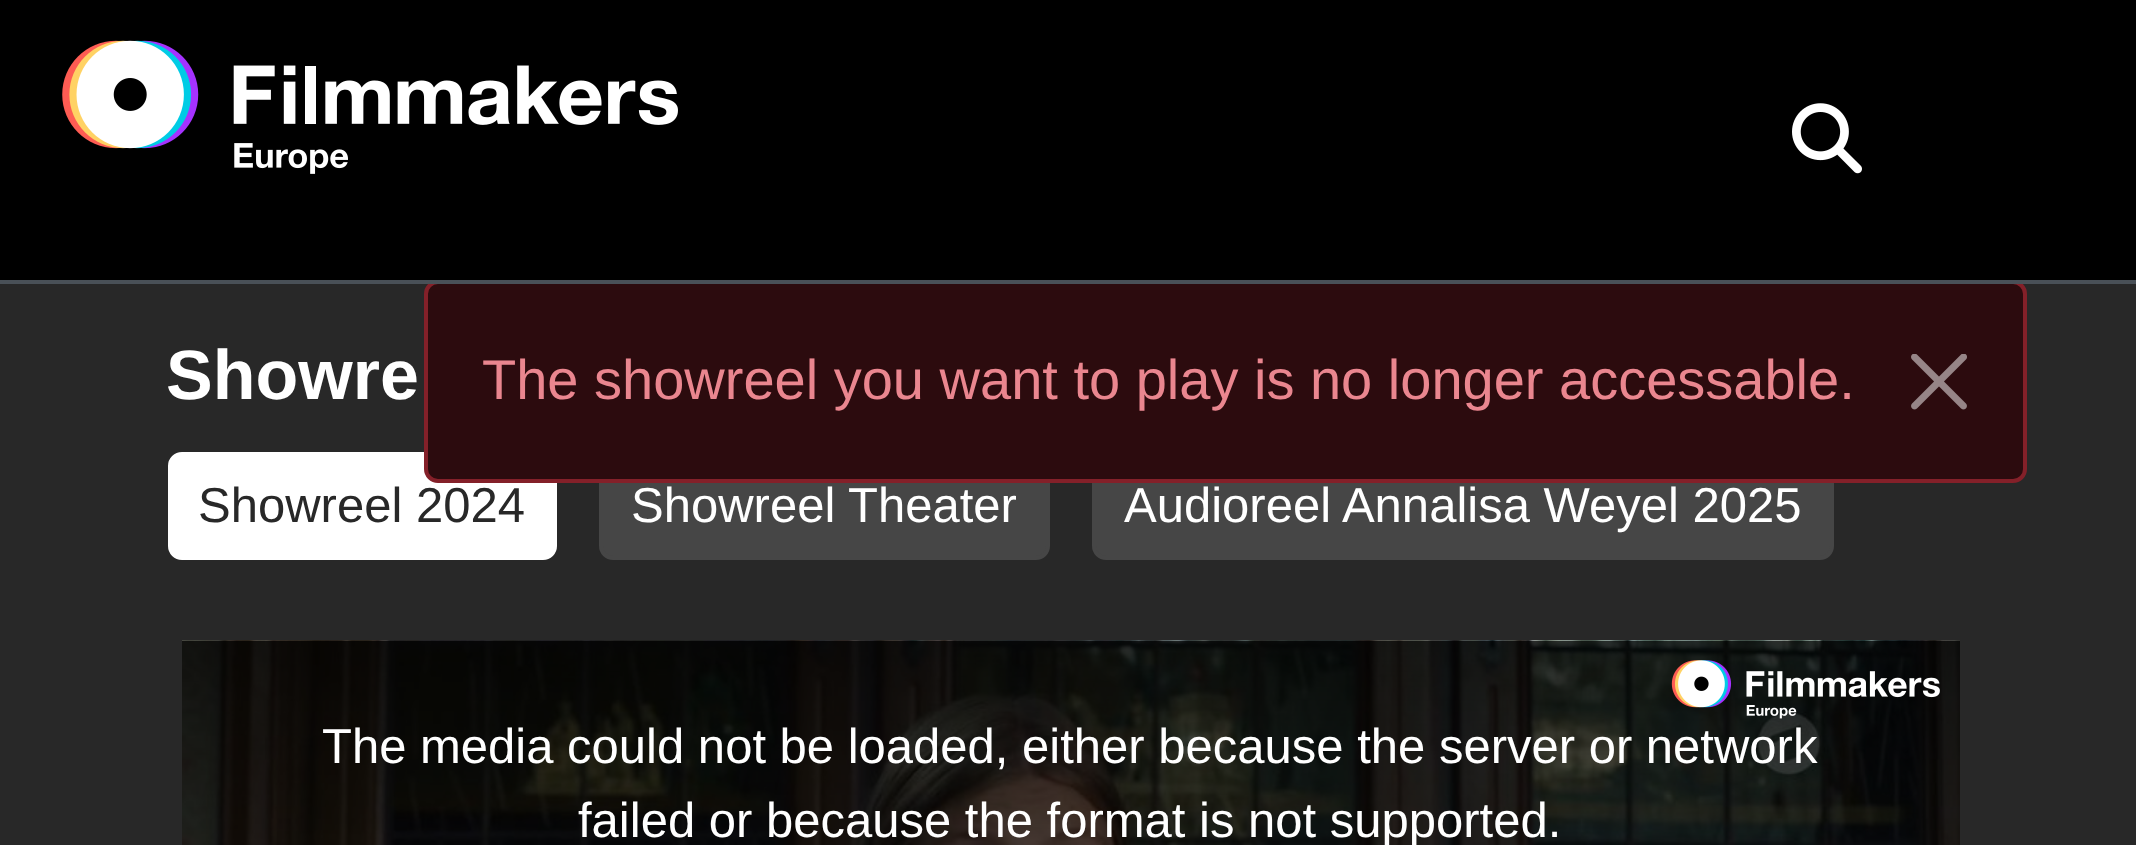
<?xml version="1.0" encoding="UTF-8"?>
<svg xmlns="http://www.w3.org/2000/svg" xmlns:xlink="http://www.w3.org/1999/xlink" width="2136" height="845">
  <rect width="100%" height="100%" fill="#282828" />
  <rect width="2136" height="280" fill="#000000" />
  <rect x="170" y="454" width="385" height="104" rx="12" fill="#ffffff" stroke="#ffffff" stroke-width="4" />
  <rect x="601" y="454" width="447" height="104" rx="12" fill="#464646" stroke="#464646" stroke-width="4" />
  <rect x="1094" y="454" width="738" height="104" rx="12" fill="#464646" stroke="#464646" stroke-width="4" />
  <rect x="426" y="282" width="1599" height="199" rx="12" fill="#2c0b0e" stroke="#842029" stroke-width="4" />
  <rect y="280" width="2136" height="4" fill="#495057" />
  <image x="62" y="40" width="616" height="134" xlink:href="image1.png" />
  <image x="1792" y="103" width="70" height="71" xlink:href="image2.png" />
  <image x="1911" y="354" width="56" height="56" xlink:href="image3.png" />
  <image x="182" y="640" width="1778" height="205" xlink:href="image4.png" />
  <image x="182" y="640" width="1778" height="1" xlink:href="image5.png" />
  <image x="1671" y="660" width="269" height="59" xlink:href="image6.png" />
  <text x="166" y="399" word-spacing="-1" style="font-family: Liberation Sans; font-size: 70px; font-weight: bold; fill: #ffffff">Showre</text>
  <text x="198" y="522" style="font-family: Liberation Sans; font-size: 49px; fill: #282828">Showreel 2024</text>
  <text x="631" y="522" style="font-family: Liberation Sans; font-size: 49px; fill: #ffffff">Showreel Theater</text>
  <text x="1124" y="522" style="font-family: Liberation Sans; font-size: 49px; fill: #ffffff">Audioreel Annalisa Weyel 2025</text>
  <text x="482" y="399" style="font-family: Liberation Sans; font-size: 56px; fill: #ea868f">The showreel you want to play is no longer accessable.</text>
  <text x="322" y="763" style="font-family: Liberation Sans; font-size: 49px; fill: #ffffff">The media could not be loaded, either because the server or network</text>
  <text x="578" y="837" style="font-family: Liberation Sans; font-size: 49px; fill: #ffffff">failed or because the format is not supported.</text>
</svg>
